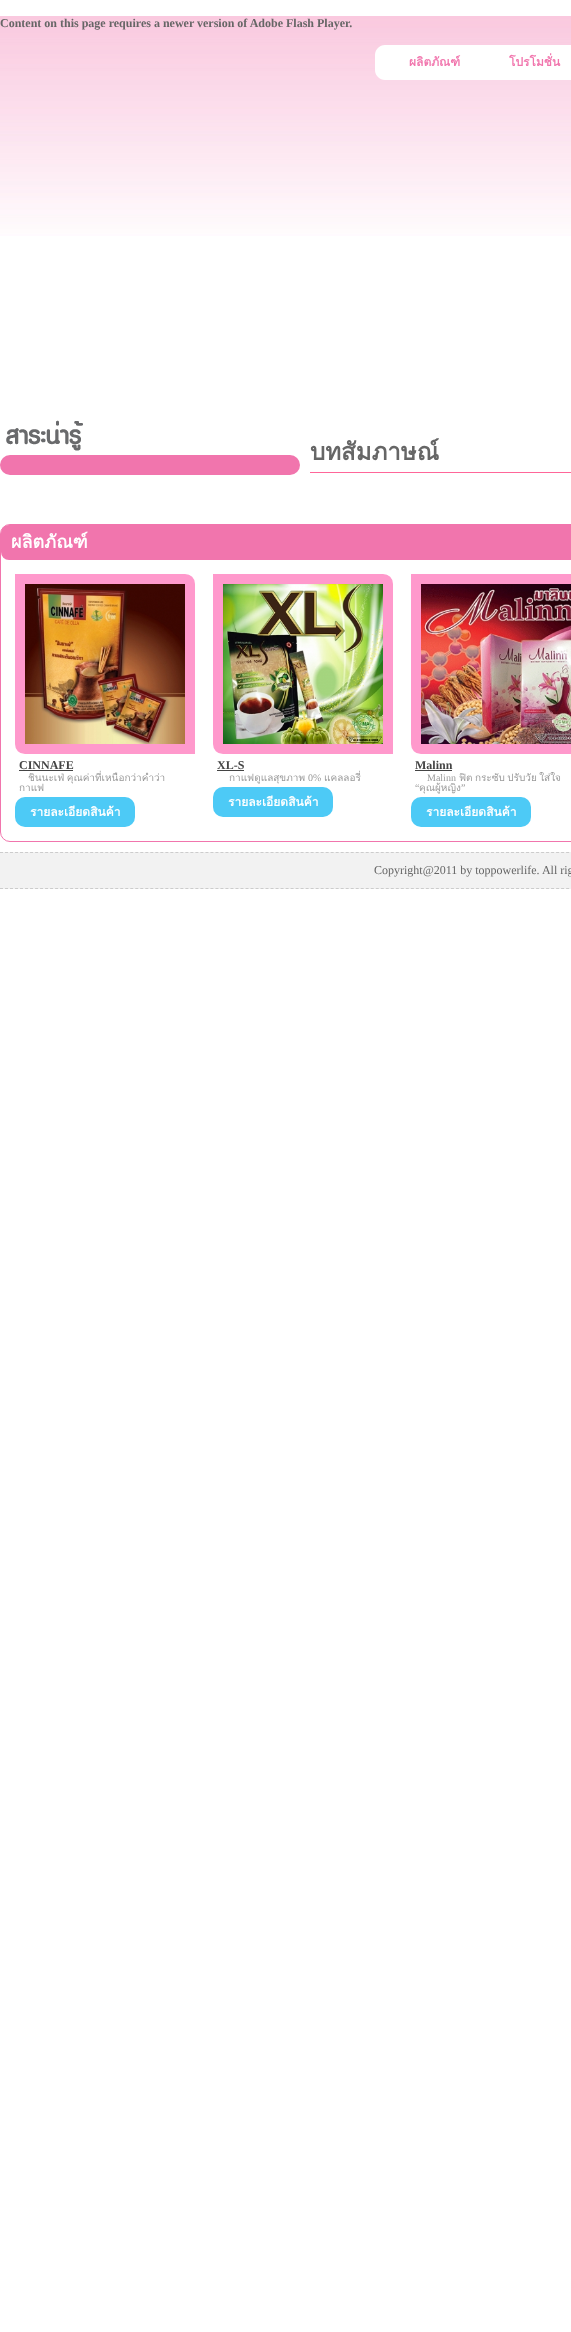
<?xml version="1.0" encoding="UTF-8"?>
<svg xmlns="http://www.w3.org/2000/svg" xmlns:xlink="http://www.w3.org/1999/xlink" width="571" height="2332">
  <rect width="100%" height="100%" fill="#ffffff" />
  <image x="0" y="16" width="571" height="220" xlink:href="image1.png" />
  <path d="M 385 45 v 35 c -5.5 0 -10 -4.5 -10 -10 v -15 c 0 -5.5 4.5 -10 10 -10 z" fill="#ffffff" />
  <rect x="385" y="45" width="186" height="35" fill="#ffffff" />
  <image x="6" y="420" width="77" height="31" xlink:href="image2.png" />
  <rect y="455" width="300" height="20" rx="10" fill="#f175ad" />
  <rect x="310" y="472" width="261" height="1" fill="#ff6699" />
  <rect x="0.5" y="524.5" width="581" height="317" rx="9.5" fill="none" stroke="#f175ad" />
  <rect x="1" y="525" width="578" height="35" rx="8" fill="#f175ad" />
  <path d="M 20 579 h 165 c 3 0 5 2 5 5 v 165 h -165 c -3 0 -5 -2 -5 -5 z" fill="none" stroke="#ff99cc" stroke-width="10" />
  <image x="25" y="584" width="160" height="160" xlink:href="image3.png" />
  <rect x="19" y="770" width="54" height="1" fill="#444444" />
  <rect x="15" y="797" width="120" height="30" rx="10" fill="#4dcaf6" />
  <path d="M 218 579 h 165 c 3 0 5 2 5 5 v 165 h -165 c -3 0 -5 -2 -5 -5 z" fill="none" stroke="#ff99cc" stroke-width="10" />
  <image x="223" y="584" width="160" height="160" xlink:href="image4.png" />
  <rect x="217" y="770" width="27" height="1" fill="#444444" />
  <rect x="213" y="787" width="120" height="30" rx="10" fill="#4dcaf6" />
  <path d="M 416 579 h 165 c 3 0 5 2 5 5 v 165 h -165 c -3 0 -5 -2 -5 -5 z" fill="none" stroke="#ff99cc" stroke-width="10" />
  <image x="421" y="584" width="150" height="160" xlink:href="image5.png" />
  <rect x="415" y="770" width="37" height="1" fill="#444444" />
  <rect x="411" y="797" width="120" height="30" rx="10" fill="#4dcaf6" />
  <rect y="852" width="571" height="37" fill="#f2f2f2" />
  <path d="M 0 852.5 h 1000" fill="none" stroke="#cccccc" stroke-dasharray="3 2.01" />
  <path d="M 0 888.5 h 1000" fill="none" stroke="#cccccc" stroke-dasharray="3 2.01" />
  <text x="0" y="27" style="font-family: Liberation Serif; font-size: 12px; font-weight: bold; fill: #666666">Content on this page requires a newer version of Adobe Flash Player.</text>
  <text x="409" y="66" style="font-family: Loma; font-size: 12px; font-weight: bold; fill: #f175ad">ผลิตภัณฑ์</text>
  <text x="509" y="66" style="font-family: Loma; font-size: 12px; font-weight: bold; fill: #f175ad">โปรโมชั่น</text>
  <text x="310" y="460" style="font-family: Loma; font-size: 24px; font-weight: bold; fill: #666666">บทสัมภาษณ์</text>
  <text x="11" y="548" style="font-family: Loma; font-size: 18px; font-weight: bold; fill: #ffffff">ผลิตภัณฑ์</text>
  <text x="19" y="769" style="font-family: Liberation Serif; font-size: 12px; font-weight: bold; fill: #444444">CINNAFE</text>
  <text x="28" y="781" word-spacing="-1" style="font-family: Loma; font-size: 10px; fill: #999999">ชินนะเฟ่ คุณค่าที่เหนือกว่าคำว่า</text>
  <text x="19" y="791" style="font-family: Loma; font-size: 10px; fill: #999999">กาแฟ</text>
  <text x="30" y="816" style="font-family: Loma; font-size: 12px; font-weight: bold; fill: #ffffff">รายละเอียดสินค้า</text>
  <text x="217" y="769" style="font-family: Liberation Serif; font-size: 12px; font-weight: bold; fill: #444444">XL-S</text>
  <text x="229" y="781" style="font-family: Loma; font-size: 10px; fill: #999999">กาแฟดูแลสุขภาพ</text>
  <text x="308" y="781" style="font-family: Liberation Serif; font-size: 10px; fill: #999999">0%</text>
  <text x="324" y="781" style="font-family: Loma; font-size: 10px; fill: #999999">แคลลอรี่</text>
  <text x="228" y="806" style="font-family: Loma; font-size: 12px; font-weight: bold; fill: #ffffff">รายละเอียดสินค้า</text>
  <text x="415" y="769" style="font-family: Liberation Serif; font-size: 12px; font-weight: bold; fill: #444444">Malinn</text>
  <text x="427" y="781" style="font-family: Liberation Serif; font-size: 10px; fill: #999999">Malinn</text>
  <text x="459" y="781" word-spacing="-1" style="font-family: Loma; font-size: 10px; fill: #999999">ฟิต กระซับ ปรับวัย ใส่ใจ</text>
  <text x="415" y="791" style="font-family: Liberation Serif; font-size: 10px; fill: #999999">“</text>
  <text x="419" y="791" style="font-family: Loma; font-size: 10px; fill: #999999">คุณผู้หญิง</text>
  <text x="461" y="791" style="font-family: Liberation Serif; font-size: 10px; fill: #999999">”</text>
  <text x="426" y="816" style="font-family: Loma; font-size: 12px; font-weight: bold; fill: #ffffff">รายละเอียดสินค้า</text>
  <text x="374" y="874" style="font-family: Liberation Serif; font-size: 12px; fill: #666666">Copyright@2011 by toppowerlife. All rig</text>
</svg>
